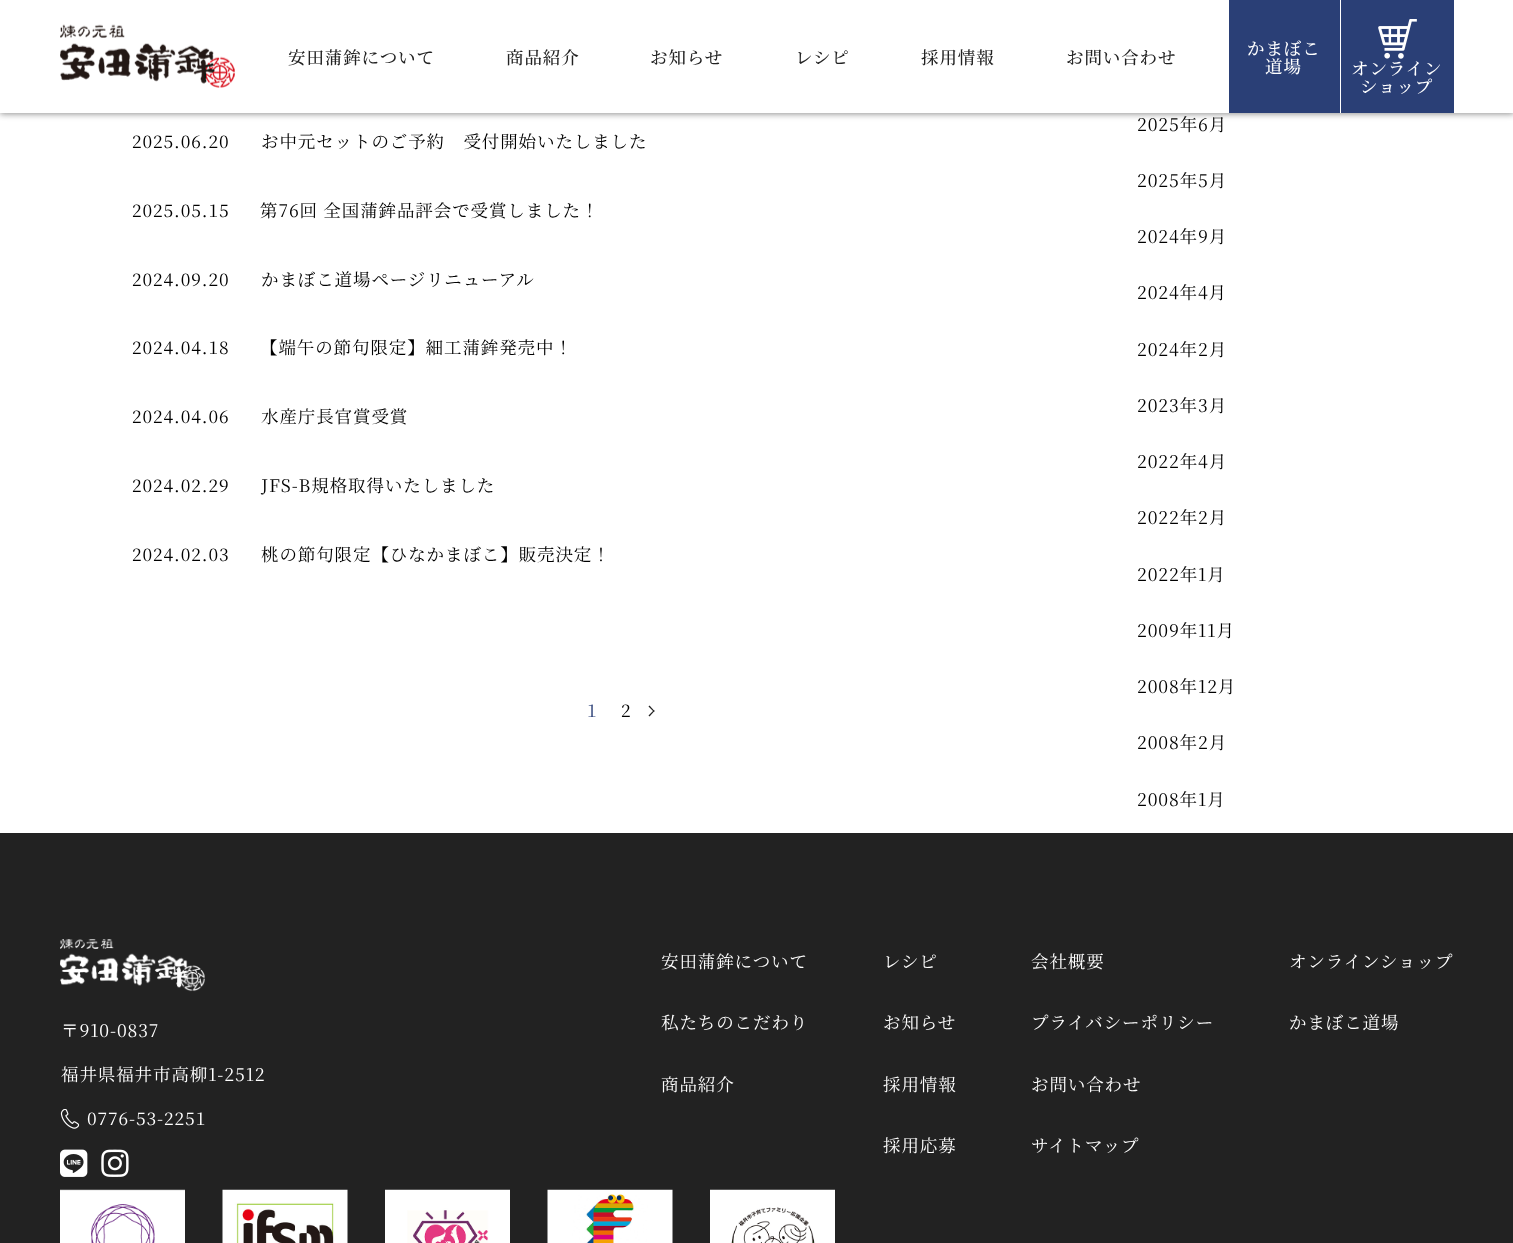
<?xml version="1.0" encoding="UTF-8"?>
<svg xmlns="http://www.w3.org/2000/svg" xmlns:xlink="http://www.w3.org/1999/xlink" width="1513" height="1243">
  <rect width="100%" height="100%" fill="#ffffff" />
  <rect y="1" width="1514" height="113" fill="#222222" fill-opacity="0.5" filter="blur(3px)" />
  <rect width="1513" height="113" fill="#ffffff" />
  <image x="60" y="24" width="175" height="64" xlink:href="image1.png" />
  <rect x="1229" width="225" height="113" fill="#2a3f76" />
  <rect x="1340" width="1" height="113" fill="#ffffff" />
  <image x="1378" y="19" width="39" height="40" xlink:href="image2.png" />
  <path d="M 649.5 705.5 l 5 5.5 l -0.5 1 l -5.5 -5.5 z" fill="#222222" />
  <path d="M 654 710 l 0.5 1 l -5 5.5 l -1 -1 z" fill="#222222" />
  <rect y="833" width="1513" height="410" fill="#222222" />
  <image x="60" y="939" width="145" height="53" xlink:href="image3.png" />
  <image x="60" y="1109" width="20" height="20" xlink:href="image4.png" />
  <image x="60" y="1149" width="28" height="28" xlink:href="image5.png" />
  <image x="101" y="1149" width="28" height="28" xlink:href="image6.png" />
  <image x="60" y="1189" width="125" height="54" xlink:href="image7.png" />
  <image x="222" y="1189" width="126" height="54" xlink:href="image8.png" />
  <image x="385" y="1189" width="125" height="54" xlink:href="image9.png" />
  <image x="547" y="1189" width="126" height="54" xlink:href="image10.png" />
  <image x="710" y="1189" width="125" height="54" xlink:href="image11.png" />
  <text x="288" y="64" style="font-family: Noto Serif JP; font-size: 17.5px; font-weight: 500; letter-spacing: 0.9px; fill: #222222">安田蒲鉾について</text>
  <text x="506" y="64" style="font-family: Noto Serif JP; font-size: 17.5px; font-weight: 500; letter-spacing: 0.9px; fill: #222222">商品紹介</text>
  <text x="650" y="64" style="font-family: Noto Serif JP; font-size: 17.5px; font-weight: 500; letter-spacing: 0.9px; fill: #222222">お知らせ</text>
  <text x="795" y="64" style="font-family: Noto Serif JP; font-size: 17.5px; font-weight: 500; letter-spacing: 0.9px; fill: #222222">レシピ</text>
  <text x="921" y="64" style="font-family: Noto Serif JP; font-size: 17.5px; font-weight: 500; letter-spacing: 0.9px; fill: #222222">採用情報</text>
  <text x="1066" y="64" style="font-family: Noto Serif JP; font-size: 17.5px; font-weight: 500; letter-spacing: 0.9px; fill: #222222">お問い合わせ</text>
  <text x="1247" y="55" style="font-family: Noto Serif JP; font-size: 17.5px; font-weight: 500; letter-spacing: 0.9px; fill: #ffffff">かまぼこ</text>
  <text x="1265" y="73" style="font-family: Noto Serif JP; font-size: 17.5px; font-weight: 500; letter-spacing: 0.9px; fill: #ffffff">道場</text>
  <text x="1351" y="75" style="font-family: Noto Serif JP; font-size: 17.5px; font-weight: 500; letter-spacing: 0.9px; fill: #ffffff">オンライン</text>
  <text x="1360" y="93" style="font-family: Noto Serif JP; font-size: 17.5px; font-weight: 500; letter-spacing: 0.9px; fill: #ffffff">ショップ</text>
  <text x="132" y="148" style="font-family: Noto Serif JP; font-size: 17.5px; letter-spacing: 0.9px; fill: #000000">2025.06.20</text>
  <text x="261" y="148" style="font-family: Noto Serif JP; font-size: 17.5px; letter-spacing: 0.9px; fill: #000000">お中元セットのご予約　受付開始いたしました</text>
  <text x="132" y="217" style="font-family: Noto Serif JP; font-size: 17.5px; letter-spacing: 0.9px; fill: #000000">2025.05.15</text>
  <text x="260" y="217" style="font-family: Noto Serif JP; font-size: 17.5px; letter-spacing: 0.9px; fill: #000000">第76回 全国蒲鉾品評会で受賞しました！</text>
  <text x="132" y="286" style="font-family: Noto Serif JP; font-size: 17.5px; letter-spacing: 0.9px; fill: #000000">2024.09.20</text>
  <text x="261" y="286" style="font-family: Noto Serif JP; font-size: 17.5px; letter-spacing: 0.9px; fill: #000000">かまぼこ道場ページリニューアル</text>
  <text x="132" y="354" style="font-family: Noto Serif JP; font-size: 17.5px; letter-spacing: 0.9px; fill: #000000">2024.04.18</text>
  <text x="260" y="354" style="font-family: Noto Serif JP; font-size: 17.5px; letter-spacing: 0.9px; fill: #000000">【端午の節句限定】細工蒲鉾発売中！</text>
  <text x="132" y="423" style="font-family: Noto Serif JP; font-size: 17.5px; letter-spacing: 0.9px; fill: #000000">2024.04.06</text>
  <text x="261" y="423" style="font-family: Noto Serif JP; font-size: 17.5px; letter-spacing: 0.9px; fill: #000000">水産庁長官賞受賞</text>
  <text x="132" y="492" style="font-family: Noto Serif JP; font-size: 17.5px; letter-spacing: 0.9px; fill: #000000">2024.02.29</text>
  <text x="261" y="492" style="font-family: Noto Serif JP; font-size: 17.5px; letter-spacing: 0.9px; fill: #000000">JFS-B規格取得いたしました</text>
  <text x="132" y="561" style="font-family: Noto Serif JP; font-size: 17.5px; letter-spacing: 0.9px; fill: #000000">2024.02.03</text>
  <text x="261" y="561" style="font-family: Noto Serif JP; font-size: 17.5px; letter-spacing: 0.9px; fill: #000000">桃の節句限定【ひなかまぼこ】販売決定！</text>
  <text x="587" y="717" style="font-family: Noto Serif JP; font-size: 17.5px; letter-spacing: 0.9px; fill: #2a3f76">1</text>
  <text x="621" y="717" style="font-family: Noto Serif JP; font-size: 17.5px; letter-spacing: 0.9px; fill: #000000">2</text>
  <text x="1137" y="131" style="font-family: Noto Serif JP; font-size: 17.5px; letter-spacing: 0.9px; fill: #000000">2025年6月</text>
  <text x="1137" y="187" style="font-family: Noto Serif JP; font-size: 17.5px; letter-spacing: 0.9px; fill: #000000">2025年5月</text>
  <text x="1137" y="243" style="font-family: Noto Serif JP; font-size: 17.5px; letter-spacing: 0.9px; fill: #000000">2024年9月</text>
  <text x="1137" y="299" style="font-family: Noto Serif JP; font-size: 17.5px; letter-spacing: 0.9px; fill: #000000">2024年4月</text>
  <text x="1137" y="356" style="font-family: Noto Serif JP; font-size: 17.5px; letter-spacing: 0.9px; fill: #000000">2024年2月</text>
  <text x="1137" y="412" style="font-family: Noto Serif JP; font-size: 17.5px; letter-spacing: 0.9px; fill: #000000">2023年3月</text>
  <text x="1137" y="468" style="font-family: Noto Serif JP; font-size: 17.5px; letter-spacing: 0.9px; fill: #000000">2022年4月</text>
  <text x="1137" y="524" style="font-family: Noto Serif JP; font-size: 17.5px; letter-spacing: 0.9px; fill: #000000">2022年2月</text>
  <text x="1137" y="581" style="font-family: Noto Serif JP; font-size: 17.5px; letter-spacing: 0.9px; fill: #000000">2022年1月</text>
  <text x="1137" y="637" style="font-family: Noto Serif JP; font-size: 17.5px; letter-spacing: 0.9px; fill: #000000">2009年11月</text>
  <text x="1137" y="693" style="font-family: Noto Serif JP; font-size: 17.5px; letter-spacing: 0.9px; fill: #000000">2008年12月</text>
  <text x="1137" y="749" style="font-family: Noto Serif JP; font-size: 17.5px; letter-spacing: 0.9px; fill: #000000">2008年2月</text>
  <text x="1137" y="806" style="font-family: Noto Serif JP; font-size: 17.5px; letter-spacing: 0.9px; fill: #000000">2008年1月</text>
  <text x="61" y="1037" style="font-family: Noto Serif JP; font-size: 17.5px; letter-spacing: 0.9px; fill: #ffffff">〒910-0837</text>
  <text x="61" y="1081" style="font-family: Noto Serif JP; font-size: 17.5px; letter-spacing: 0.9px; fill: #ffffff">福井県福井市高柳1-2512</text>
  <text x="87" y="1125" style="font-family: Noto Serif JP; font-size: 17.5px; letter-spacing: 0.9px; fill: #ffffff">0776-53-2251</text>
  <text x="661" y="968" style="font-family: Noto Serif JP; font-size: 17.5px; letter-spacing: 0.9px; fill: #ffffff">安田蒲鉾について</text>
  <text x="661" y="1029" style="font-family: Noto Serif JP; font-size: 17.5px; letter-spacing: 0.9px; fill: #ffffff">私たちのこだわり</text>
  <text x="661" y="1091" style="font-family: Noto Serif JP; font-size: 17.5px; letter-spacing: 0.9px; fill: #ffffff">商品紹介</text>
  <text x="883" y="968" style="font-family: Noto Serif JP; font-size: 17.5px; letter-spacing: 0.9px; fill: #ffffff">レシピ</text>
  <text x="883" y="1029" style="font-family: Noto Serif JP; font-size: 17.5px; letter-spacing: 0.9px; fill: #ffffff">お知らせ</text>
  <text x="883" y="1091" style="font-family: Noto Serif JP; font-size: 17.5px; letter-spacing: 0.9px; fill: #ffffff">採用情報</text>
  <text x="883" y="1152" style="font-family: Noto Serif JP; font-size: 17.5px; letter-spacing: 0.9px; fill: #ffffff">採用応募</text>
  <text x="1031" y="968" style="font-family: Noto Serif JP; font-size: 17.5px; letter-spacing: 0.9px; fill: #ffffff">会社概要</text>
  <text x="1031" y="1029" style="font-family: Noto Serif JP; font-size: 17.5px; letter-spacing: 0.9px; fill: #ffffff">プライバシーポリシー</text>
  <text x="1031" y="1091" style="font-family: Noto Serif JP; font-size: 17.5px; letter-spacing: 0.9px; fill: #ffffff">お問い合わせ</text>
  <text x="1031" y="1152" style="font-family: Noto Serif JP; font-size: 17.5px; letter-spacing: 0.9px; fill: #ffffff">サイトマップ</text>
  <text x="1289" y="968" style="font-family: Noto Serif JP; font-size: 17.5px; letter-spacing: 0.9px; fill: #ffffff">オンラインショップ</text>
  <text x="1289" y="1029" style="font-family: Noto Serif JP; font-size: 17.5px; letter-spacing: 0.9px; fill: #ffffff">かまぼこ道場</text>
</svg>
